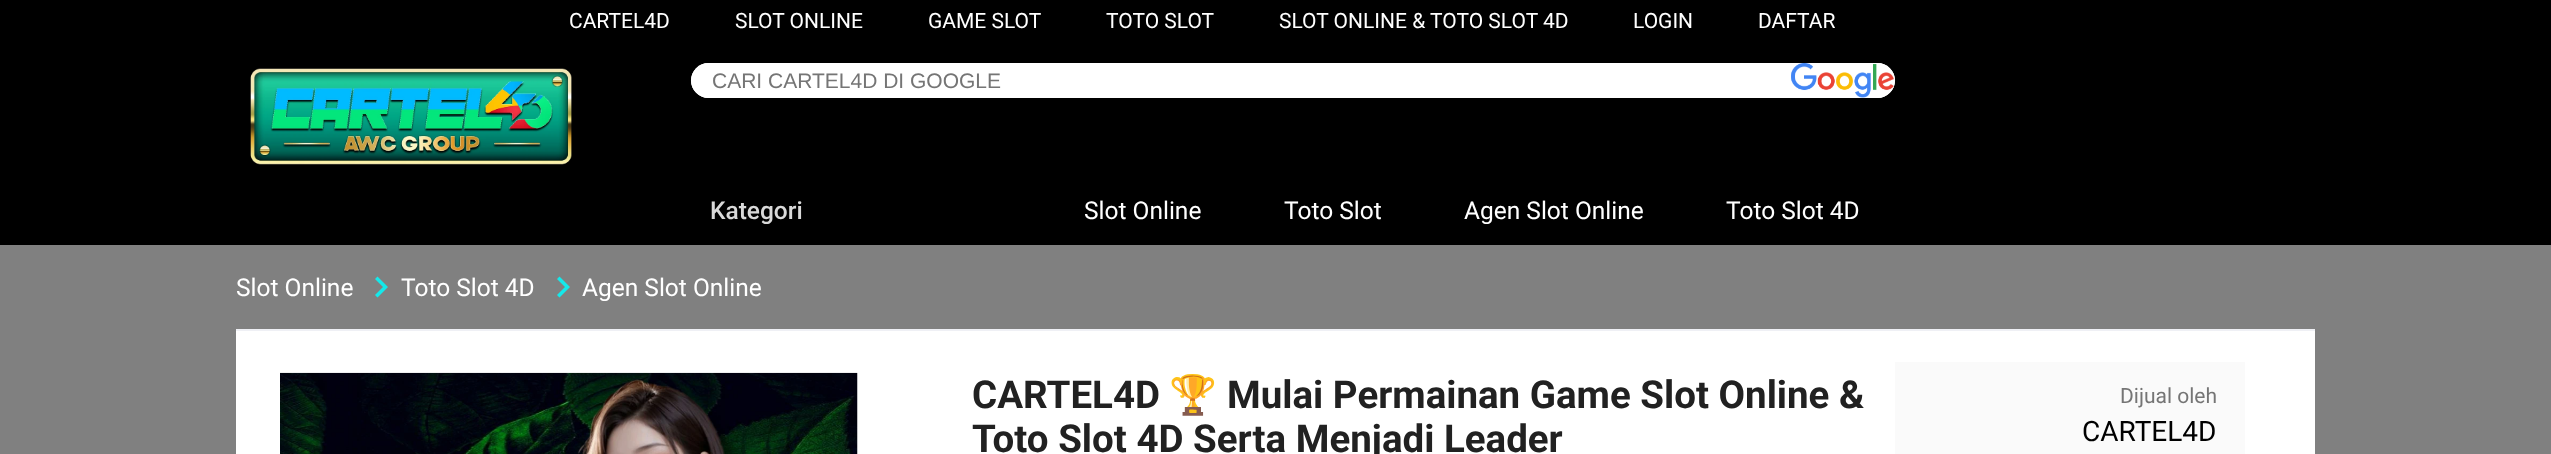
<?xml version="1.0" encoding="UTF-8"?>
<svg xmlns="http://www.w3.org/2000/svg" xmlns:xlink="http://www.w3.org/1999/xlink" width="2551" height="454">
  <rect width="100%" height="100%" fill="#808080" />
  <rect width="2551" height="245" fill="#000000" />
  <image x="250" y="68" width="322" height="97" xlink:href="image1.png" />
  <rect x="691" y="63" width="1204" height="35" rx="17.5" fill="#ffffff" />
  <path d="M 708.5 63 h 1081.5 v 35 h -1081.5 c -9.5 0 -17.5 -8 -17.5 -17.5 c 0 -9.5 8 -17.5 17.5 -17.5 z" fill="#ffffff" />
  <path d="M 1799 63 h 78.5 c 9.5 0 17.5 8 17.5 17.5 c 0 9.5 -8 17.5 -17.5 17.5 h -78.5 c -5 0 -9 -4 -9 -9 v -17 c 0 -5 4 -9 9 -9 z" fill="#ffffff" />
  <image x="1791" y="63" width="103" height="35" xlink:href="image2.png" />
  <rect x="236" y="329" width="2079" height="2" fill="#eff0f5" />
  <path d="M 375 279 l 2.5 -2.5 l 10.5 10.5 l -10.5 10.5 l -2.5 -2.5 l 8 -8 z" fill="#14e9eb" />
  <path d="M 557 279 l 2.5 -2.5 l 10.5 10.5 l -10.5 10.5 l -2.5 -2.5 l 8 -8 z" fill="#14e9eb" />
  <rect x="236" y="331" width="2079" height="123" fill="#ffffff" />
  <image x="280" y="372" width="578" height="82" xlink:href="image3.png" />
  <rect x="1895" y="362" width="350" height="92" fill="#fafafa" />
  <text x="569" y="28" style="font-family: Roboto; font-size: 21px; fill: #ffffff">CARTEL4D</text>
  <text x="735" y="28" style="font-family: Roboto; font-size: 21px; fill: #ffffff">SLOT ONLINE</text>
  <text x="928" y="28" style="font-family: Roboto; font-size: 21px; fill: #ffffff">GAME SLOT</text>
  <text x="1106" y="28" style="font-family: Roboto; font-size: 21px; fill: #ffffff">TOTO SLOT</text>
  <text x="1279" y="28" style="font-family: Roboto; font-size: 21px; fill: #ffffff">SLOT ONLINE &amp; TOTO SLOT 4D</text>
  <text x="1633" y="28" style="font-family: Roboto; font-size: 21px; fill: #ffffff">LOGIN</text>
  <text x="1758" y="28" style="font-family: Roboto; font-size: 21px; fill: #ffffff">DAFTAR</text>
  <text x="712" y="88" style="font-family: Liberation Sans; font-size: 21px; fill: #757575">CARI CARTEL4D DI GOOGLE</text>
  <text x="710" y="219" style="font-family: Roboto; font-size: 24.5px; font-weight: 500; fill: #d9d9d9">Kategori</text>
  <text x="1084" y="219" style="font-family: Roboto; font-size: 24.5px; fill: #ffffff">Slot Online</text>
  <text x="1284" y="219" style="font-family: Roboto; font-size: 24.5px; fill: #ffffff">Toto Slot</text>
  <text x="1464" y="219" style="font-family: Roboto; font-size: 24.5px; fill: #ffffff">Agen Slot Online</text>
  <text x="1726" y="219" style="font-family: Roboto; font-size: 24.5px; fill: #ffffff">Toto Slot 4D</text>
  <text x="236" y="296" style="font-family: Roboto; font-size: 24.5px; fill: #ffffff">Slot Online</text>
  <text x="401" y="296" style="font-family: Roboto; font-size: 24.5px; fill: #ffffff">Toto Slot 4D</text>
  <text x="582" y="296" style="font-family: Roboto; font-size: 24.5px; fill: #ffffff">Agen Slot Online</text>
  <text x="972" y="408" style="font-family: Roboto; font-size: 38.5px; font-weight: bold; fill: #212121">CARTEL4D</text>
  <text x="1169" y="408" style="font-family: Noto Color Emoji; font-size: 38.5px; font-weight: bold; fill: #212121">🏆</text>
  <text x="1227" y="408" style="font-family: Roboto; font-size: 38.5px; font-weight: bold; fill: #212121">Mulai Permainan Game Slot Online &amp;</text>
  <text x="972" y="452" style="font-family: Roboto; font-size: 38.5px; font-weight: bold; fill: #212121">Toto Slot 4D Serta Menjadi Leader</text>
  <text x="2120" y="403" style="font-family: 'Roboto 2'; font-size: 21px; fill: #757575">Dijual oleh</text>
  <text x="2082" y="441" style="font-family: 'Roboto 2'; font-size: 28px; fill: #000000">CARTEL4D</text>
</svg>
